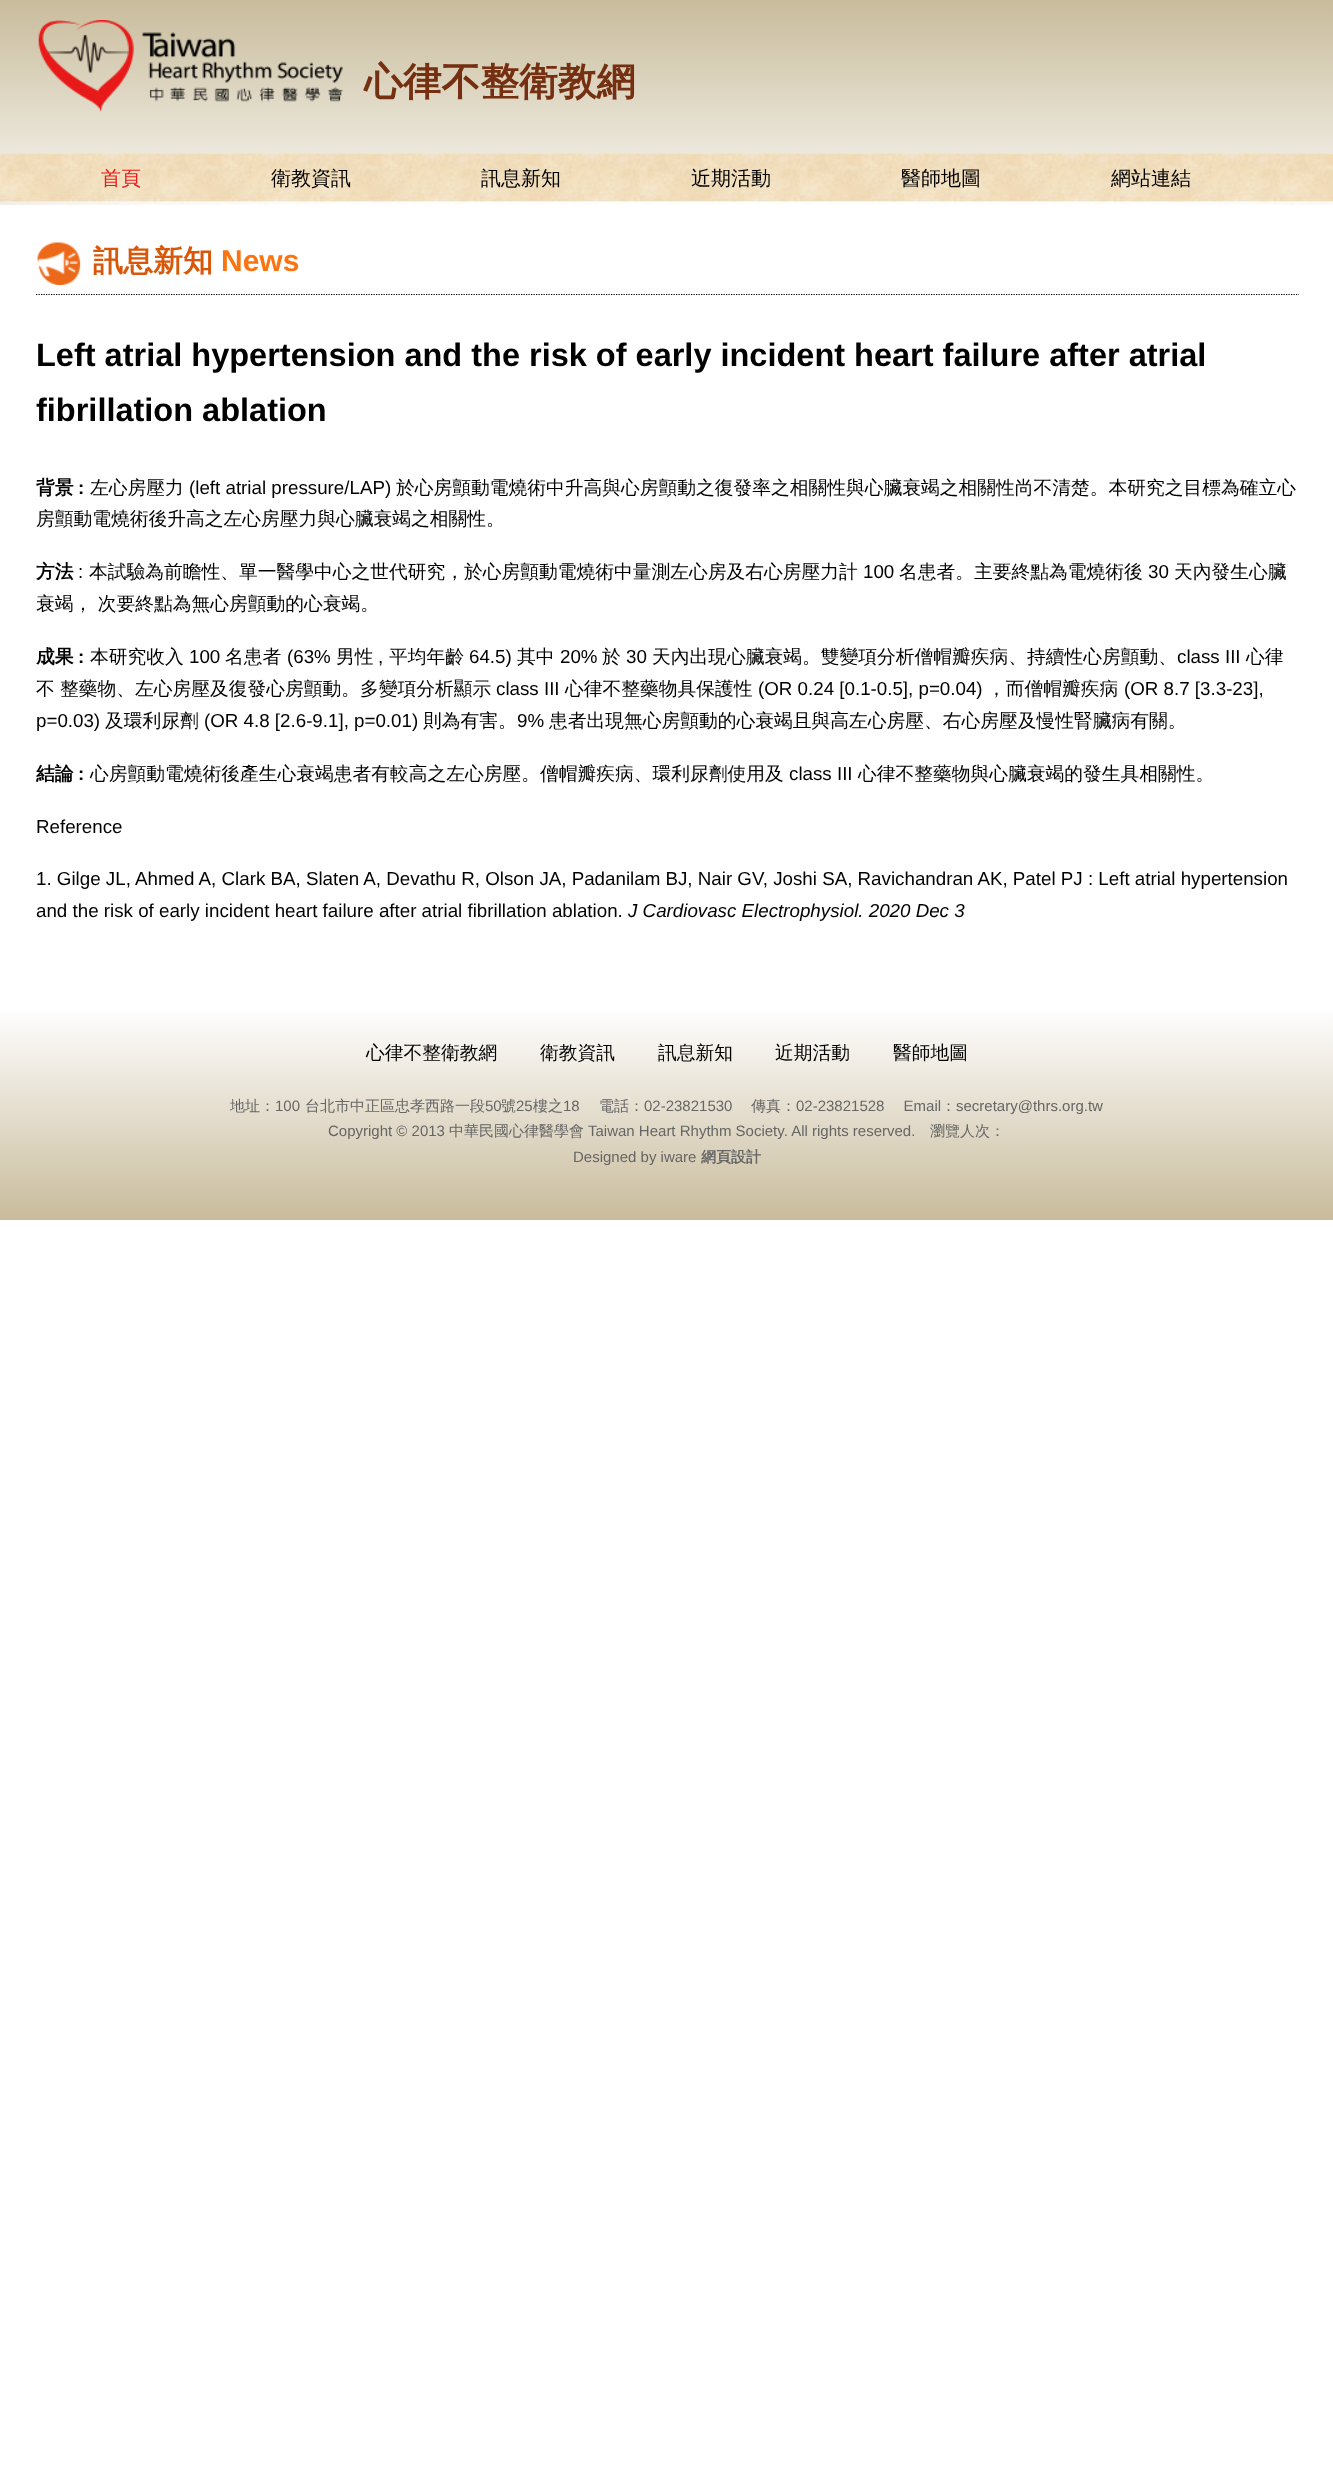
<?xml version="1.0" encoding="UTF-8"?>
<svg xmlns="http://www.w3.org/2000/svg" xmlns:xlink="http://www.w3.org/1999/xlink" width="1333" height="2484">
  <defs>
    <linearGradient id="g1" gradientUnits="userSpaceOnUse" x1="667" y1="0" x2="667" y2="154"><stop offset="0" stop-color="#c9bc9c" /><stop offset="1" stop-color="#ece8dc" /></linearGradient>
    <linearGradient id="g2" gradientUnits="userSpaceOnUse" x1="667" y1="1011" x2="667" y2="1220"><stop offset="0" stop-color="#fefdfd" /><stop offset="1" stop-color="#c9bc9c" /></linearGradient>
  </defs>
  <rect width="100%" height="100%" fill="#ffffff" />
  <rect width="1333" height="154" fill="url(#g1)" />
  <image x="38" y="20" width="305" height="92" xlink:href="image1.png" />
  <image x="0" y="153" width="1333" height="52" xlink:href="image2.png" />
  <path d="M 36 294.5 h 1263" fill="none" stroke="#000000" stroke-width="1.2" stroke-dasharray="1.25 1.25" />
  <image x="37" y="242" width="44" height="43" xlink:href="image3.png" />
  <rect y="1012" width="1333" height="208" fill="url(#g2)" />
  <text x="364" y="95" style="font-family: WenQuanYi Zen Hei; font-size: 38.75px; font-weight: bold; fill: #752f11">心律不整衛教網</text>
  <text x="101" y="185" style="font-family: WenQuanYi Zen Hei; font-size: 20px; font-weight: 500; fill: #e71a19">首頁</text>
  <text x="271" y="185" style="font-family: WenQuanYi Zen Hei; font-size: 20px; font-weight: 500; fill: #000000">衛教資訊</text>
  <text x="481" y="185" style="font-family: WenQuanYi Zen Hei; font-size: 20px; font-weight: 500; fill: #000000">訊息新知</text>
  <text x="691" y="185" style="font-family: WenQuanYi Zen Hei; font-size: 20px; font-weight: 500; fill: #000000">近期活動</text>
  <text x="901" y="185" style="font-family: WenQuanYi Zen Hei; font-size: 20px; font-weight: 500; fill: #000000">醫師地圖</text>
  <text x="1111" y="185" style="font-family: WenQuanYi Zen Hei; font-size: 20px; font-weight: 500; fill: #000000">網站連結</text>
  <text x="93" y="271" style="font-family: WenQuanYi Zen Hei; font-size: 30px; font-weight: bold; fill: #d85709">訊息新知</text>
  <text x="221" y="271" style="font-family: Liberation Sans; font-size: 30px; font-weight: bold; fill: #fc7410">News</text>
  <text x="36" y="366" style="font-family: Liberation Sans; font-size: 32.5px; font-weight: bold; fill: #000000">Left atrial hypertension and the risk of early incident heart failure after atrial</text>
  <text x="36" y="421" style="font-family: Liberation Sans; font-size: 32.5px; font-weight: bold; fill: #000000">fibrillation ablation</text>
  <text x="36" y="494" style="font-family: WenQuanYi Zen Hei; font-size: 18.75px; font-weight: bold; fill: #000000">背景</text>
  <text x="78" y="494" style="font-family: Liberation Sans; font-size: 18.75px; font-weight: bold; fill: #000000">:</text>
  <text x="90" y="494" style="font-family: WenQuanYi Zen Hei; font-size: 18.75px; font-weight: 500; fill: #000000">左心房壓力</text>
  <text x="189" y="494" style="font-family: Liberation Sans; font-size: 18.75px; fill: #000000">(left atrial pressure/LAP)</text>
  <text x="396" y="494" style="font-family: WenQuanYi Zen Hei; font-size: 18.75px; font-weight: 500; fill: #000000">於心房顫動電燒術中升高與心房顫動之復發率之相關性與心臟衰竭之相關性尚不清楚。本研究之目標為確立心</text>
  <text x="36" y="525" style="font-family: WenQuanYi Zen Hei; font-size: 18.75px; font-weight: 500; fill: #000000">房顫動電燒術後升高之左心房壓力與心臟衰竭之相關性。</text>
  <text x="36" y="578" style="font-family: WenQuanYi Zen Hei; font-size: 18.75px; font-weight: bold; fill: #000000">方法</text>
  <text x="78" y="578" style="font-family: Liberation Sans; font-size: 18.75px; fill: #000000">:</text>
  <text x="89" y="578" style="font-family: WenQuanYi Zen Hei; font-size: 18.75px; font-weight: 500; fill: #000000">本試驗為前瞻性、單一醫學中心之世代研究，於心房顫動電燒術中量測左心房及右心房壓力計</text>
  <text x="863" y="578" style="font-family: Liberation Sans; font-size: 18.75px; fill: #000000">100</text>
  <text x="899" y="578" style="font-family: WenQuanYi Zen Hei; font-size: 18.75px; font-weight: 500; fill: #000000">名患者。主要終點為電燒術後</text>
  <text x="1148" y="578" style="font-family: Liberation Sans; font-size: 18.75px; fill: #000000">30</text>
  <text x="1174" y="578" style="font-family: WenQuanYi Zen Hei; font-size: 18.75px; font-weight: 500; fill: #000000">天內發生心臟</text>
  <text x="36" y="610" style="font-family: WenQuanYi Zen Hei; font-size: 18.75px; font-weight: 500; fill: #000000">衰竭， 次要終點為無心房顫動的心衰竭。</text>
  <text x="36" y="663" style="font-family: WenQuanYi Zen Hei; font-size: 18.75px; font-weight: bold; fill: #000000">成果</text>
  <text x="78" y="663" style="font-family: Liberation Sans; font-size: 18.75px; font-weight: bold; fill: #000000">:</text>
  <text x="90" y="663" style="font-family: WenQuanYi Zen Hei; font-size: 18.75px; font-weight: 500; fill: #000000">本研究收入</text>
  <text x="189" y="663" style="font-family: Liberation Sans; font-size: 18.75px; fill: #000000">100</text>
  <text x="225" y="663" style="font-family: WenQuanYi Zen Hei; font-size: 18.75px; font-weight: 500; fill: #000000">名患者</text>
  <text x="287" y="663" style="font-family: Liberation Sans; font-size: 18.75px; fill: #000000">(63%</text>
  <text x="336" y="663" style="font-family: WenQuanYi Zen Hei; font-size: 18.75px; font-weight: 500; fill: #000000">男性</text>
  <text x="389" y="663" style="font-family: WenQuanYi Zen Hei; font-size: 18.75px; font-weight: 500; fill: #000000">平均年齡</text>
  <text x="469" y="663" style="font-family: Liberation Sans; font-size: 18.75px; fill: #000000">64.5)</text>
  <text x="517" y="663" style="font-family: WenQuanYi Zen Hei; font-size: 18.75px; font-weight: 500; fill: #000000">其中</text>
  <text x="560" y="663" style="font-family: Liberation Sans; font-size: 18.75px; fill: #000000">20%</text>
  <text x="602" y="663" style="font-family: WenQuanYi Zen Hei; font-size: 18.75px; font-weight: 500; fill: #000000">於</text>
  <text x="626" y="663" style="font-family: Liberation Sans; font-size: 18.75px; fill: #000000">30</text>
  <text x="652" y="663" style="font-family: WenQuanYi Zen Hei; font-size: 18.75px; font-weight: 500; fill: #000000">天內出現心臟衰竭。雙變項分析僧帽瓣疾病、持續性心房顫動、</text>
  <text x="1177" y="663" style="font-family: Liberation Sans; font-size: 18.75px; fill: #000000">class III</text>
  <text x="1246" y="663" style="font-family: WenQuanYi Zen Hei; font-size: 18.75px; font-weight: 500; fill: #000000">心律</text>
  <text x="378" y="663" style="font-family: Liberation Sans; font-size: 18.75px; fill: #000000">,</text>
  <text x="36" y="695" style="font-family: WenQuanYi Zen Hei; font-size: 18.75px; font-weight: 500; fill: #000000">不</text>
  <text x="60" y="695" style="font-family: WenQuanYi Zen Hei; font-size: 18.75px; font-weight: 500; fill: #000000">整藥物、左心房壓及復發心房顫動。多變項分析顯示</text>
  <text x="496" y="695" style="font-family: Liberation Sans; font-size: 18.75px; fill: #000000">class III</text>
  <text x="565" y="695" style="font-family: WenQuanYi Zen Hei; font-size: 18.75px; font-weight: 500; fill: #000000">心律不整藥物具保護性</text>
  <text x="758" y="695" style="font-family: Liberation Sans; font-size: 18.75px; fill: #000000">(OR 0.24 [0.1-0.5], p=0.04)</text>
  <text x="987" y="695" style="font-family: WenQuanYi Zen Hei; font-size: 18.75px; font-weight: 500; fill: #000000">，而僧帽瓣疾病</text>
  <text x="1124" y="695" style="font-family: Liberation Sans; font-size: 18.75px; fill: #000000">(OR 8.7 [3.3-23],</text>
  <text x="36" y="727" style="font-family: Liberation Sans; font-size: 18.75px; fill: #000000">p=0.03)</text>
  <text x="105" y="727" style="font-family: WenQuanYi Zen Hei; font-size: 18.75px; font-weight: 500; fill: #000000">及環利尿劑</text>
  <text x="204" y="727" style="font-family: Liberation Sans; font-size: 18.75px; fill: #000000">(OR 4.8 [2.6-9.1], p=0.01)</text>
  <text x="423" y="727" style="font-family: WenQuanYi Zen Hei; font-size: 18.75px; font-weight: 500; fill: #000000">則為有害。</text>
  <text x="517" y="727" style="font-family: Liberation Sans; font-size: 18.75px; fill: #000000">9%</text>
  <text x="549" y="727" style="font-family: WenQuanYi Zen Hei; font-size: 18.75px; font-weight: 500; fill: #000000">患者出現無心房顫動的心衰竭且與高左心房壓、右心房壓及慢性腎臟病有關。</text>
  <text x="36" y="780" style="font-family: WenQuanYi Zen Hei; font-size: 18.75px; font-weight: bold; fill: #000000">結論</text>
  <text x="78" y="780" style="font-family: Liberation Sans; font-size: 18.75px; font-weight: bold; fill: #000000">:</text>
  <text x="90" y="780" style="font-family: WenQuanYi Zen Hei; font-size: 18.75px; font-weight: 500; fill: #000000">心房顫動電燒術後產生心衰竭患者有較高之左心房壓。僧帽瓣疾病、環利尿劑使用及</text>
  <text x="789" y="780" style="font-family: Liberation Sans; font-size: 18.75px; fill: #000000">class III</text>
  <text x="858" y="780" style="font-family: WenQuanYi Zen Hei; font-size: 18.75px; font-weight: 500; fill: #000000">心律不整藥物與心臟衰竭的發生具相關性。</text>
  <text x="36" y="833" style="font-family: Liberation Sans; font-size: 18.75px; fill: #000000">Reference</text>
  <text x="36" y="885" style="font-family: Liberation Sans; font-size: 18.75px; fill: #000000">1. Gilge JL, Ahmed A, Clark BA, Slaten A, Devathu R, Olson JA, Padanilam BJ, Nair GV, Joshi SA, Ravichandran AK, Patel PJ : Left atrial hypertension</text>
  <text x="36" y="917" style="font-family: Liberation Sans; font-size: 18.75px; fill: #000000">and the risk of early incident heart failure after atrial fibrillation ablation.</text>
  <text x="628" y="917" style="font-family: Liberation Sans; font-size: 18.75px; font-style: italic; fill: #000000">J Cardiovasc Electrophysiol. 2020 Dec 3</text>
  <text x="366" y="1059" style="font-family: WenQuanYi Zen Hei; font-size: 18.75px; font-weight: 500; fill: #000000">心律不整衛教網</text>
  <text x="540" y="1059" style="font-family: WenQuanYi Zen Hei; font-size: 18.75px; font-weight: 500; fill: #000000">衛教資訊</text>
  <text x="658" y="1059" style="font-family: WenQuanYi Zen Hei; font-size: 18.75px; font-weight: 500; fill: #000000">訊息新知</text>
  <text x="775" y="1059" style="font-family: WenQuanYi Zen Hei; font-size: 18.75px; font-weight: 500; fill: #000000">近期活動</text>
  <text x="893" y="1059" style="font-family: WenQuanYi Zen Hei; font-size: 18.75px; font-weight: 500; fill: #000000">醫師地圖</text>
  <text x="230" y="1111" style="font-family: WenQuanYi Zen Hei; font-size: 15px; font-weight: 500; fill: #666666">地址：</text>
  <text x="275" y="1111" style="font-family: Liberation Sans; font-size: 15px; fill: #666666">100</text>
  <text x="305" y="1111" style="font-family: WenQuanYi Zen Hei; font-size: 15px; font-weight: 500; fill: #666666">台北市中正區忠孝西路一段</text>
  <text x="485" y="1111" style="font-family: Liberation Sans; font-size: 15px; fill: #666666">50</text>
  <text x="501" y="1111" style="font-family: WenQuanYi Zen Hei; font-size: 15px; font-weight: 500; fill: #666666">號</text>
  <text x="516" y="1111" style="font-family: Liberation Sans; font-size: 15px; fill: #666666">25</text>
  <text x="533" y="1111" style="font-family: WenQuanYi Zen Hei; font-size: 15px; font-weight: 500; fill: #666666">樓之</text>
  <text x="563" y="1111" style="font-family: Liberation Sans; font-size: 15px; fill: #666666">18</text>
  <text x="599" y="1111" style="font-family: WenQuanYi Zen Hei; font-size: 15px; font-weight: 500; fill: #666666">電話：</text>
  <text x="644" y="1111" style="font-family: Liberation Sans; font-size: 15px; fill: #666666">02-23821530</text>
  <text x="751" y="1111" style="font-family: WenQuanYi Zen Hei; font-size: 15px; font-weight: 500; fill: #666666">傳真：</text>
  <text x="796" y="1111" style="font-family: Liberation Sans; font-size: 15px; fill: #666666">02-23821528  Email</text>
  <text x="941" y="1111" style="font-family: WenQuanYi Zen Hei; font-size: 15px; font-weight: 500; fill: #666666">：</text>
  <text x="956" y="1111" style="font-family: Liberation Sans; font-size: 15px; fill: #666666">secretary@thrs.org.tw</text>
  <text x="328" y="1136" style="font-family: Liberation Sans; font-size: 15px; fill: #666666">Copyright © 2013</text>
  <text x="449" y="1136" style="font-family: WenQuanYi Zen Hei; font-size: 15px; font-weight: 500; fill: #666666">中華民國心律醫學會</text>
  <text x="588" y="1136" style="font-family: Liberation Sans; font-size: 15px; fill: #666666">Taiwan Heart Rhythm Society. All rights reserved.</text>
  <text x="930" y="1136" style="font-family: WenQuanYi Zen Hei; font-size: 15px; font-weight: 500; fill: #666666">瀏覽人次：</text>
  <text x="573" y="1162" style="font-family: Liberation Sans; font-size: 15px; fill: #666666">Designed by iware</text>
  <text x="701" y="1162" style="font-family: WenQuanYi Zen Hei; font-size: 15px; font-weight: bold; fill: #666666">網頁設計</text>
</svg>
